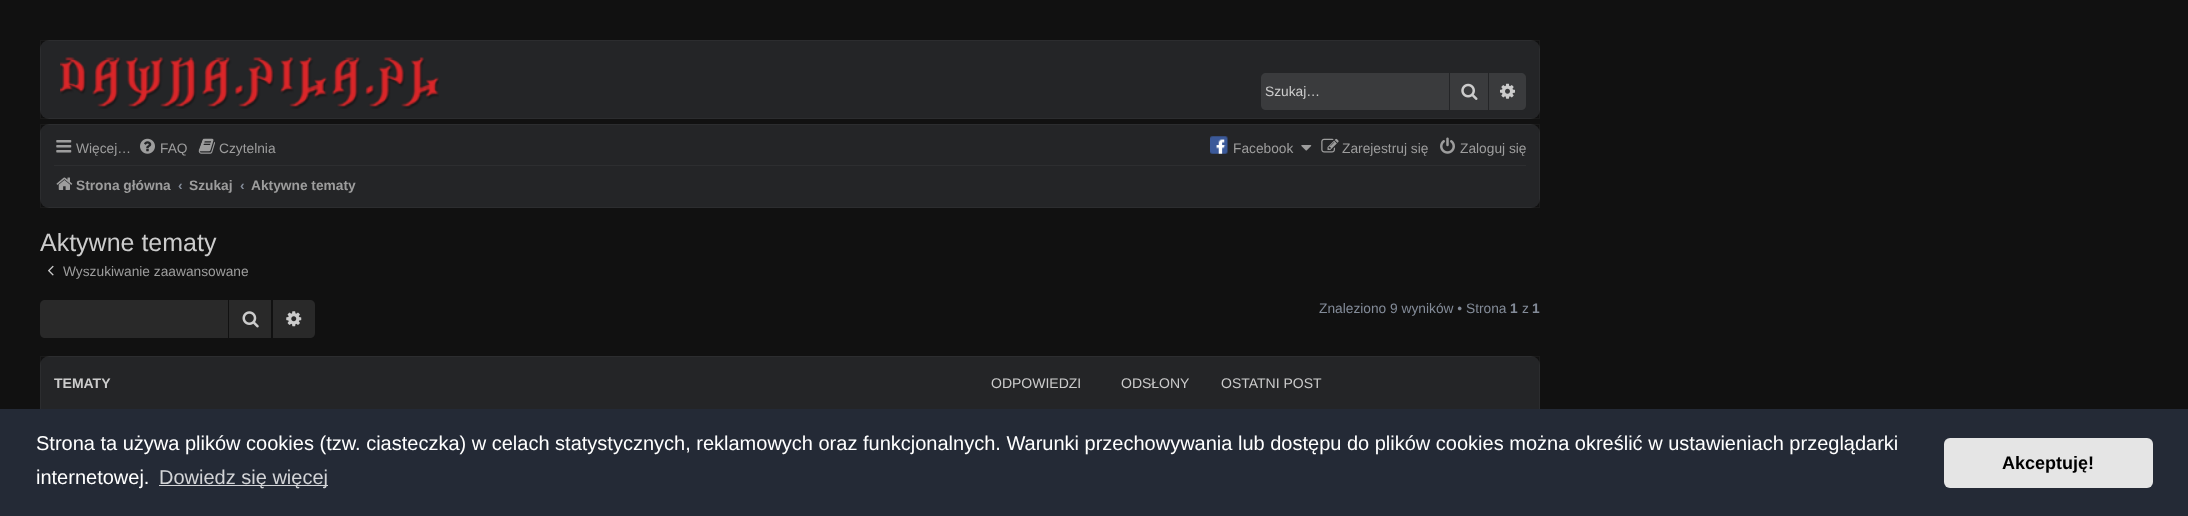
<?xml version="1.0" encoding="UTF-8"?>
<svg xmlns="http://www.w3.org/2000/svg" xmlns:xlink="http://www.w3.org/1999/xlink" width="2188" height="516">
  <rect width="100%" height="100%" fill="#111111" />
  <rect x="40" y="40" width="1500" height="79" rx="9" fill="#242527" />
  <rect x="40.5" y="40.5" width="1499" height="78" fill="none" stroke="#ffffff" stroke-opacity="0.04" />
  <image x="60" y="57" width="379" height="52" xlink:href="image1.png" />
  <path d="M 1266 73 h 183 v 37 h -183 c -3 0 -5 -2 -5 -5 v -27 c 0 -3 2 -5 5 -5 z" fill="#3a3b3d" />
  <rect x="1450" y="73" width="38" height="37" fill="#3a3b3d" />
  <image x="1461" y="83" width="17" height="17" xlink:href="image2.png" />
  <path d="M 1489 73 h 32 c 3 0 5 2 5 5 v 27 c 0 3 -2 5 -5 5 h -32 z" fill="#3a3b3d" />
  <image x="1500" y="83" width="15" height="16" xlink:href="image3.png" />
  <rect x="40" y="124" width="1500" height="84" rx="9" fill="#242527" />
  <rect x="40.5" y="124.5" width="1499" height="83" fill="none" stroke="#ffffff" stroke-opacity="0.04" />
  <image x="56" y="140" width="16" height="13" xlink:href="image4.png" />
  <image x="140" y="138" width="15" height="16" xlink:href="image5.png" />
  <image x="198" y="138" width="17" height="16" xlink:href="image6.png" />
  <image x="1210" y="136" width="18" height="18" xlink:href="image7.png" />
  <image x="1301" y="145" width="11" height="6" xlink:href="image8.png" />
  <image x="1321" y="138" width="18" height="15" xlink:href="image9.png" />
  <image x="1440" y="137" width="15" height="17" xlink:href="image10.png" />
  <rect x="54" y="165" width="1472" height="1" fill="#2d2e30" />
  <image x="56" y="177" width="17" height="13" xlink:href="image11.png" />
  <image x="48" y="265" width="6" height="11" xlink:href="image12.png" />
  <path d="M 45 300 h 183 v 38 h -183 c -3 0 -5 -2 -5 -5 v -28 c 0 -3 2 -5 5 -5 z" fill="#292929" />
  <rect x="229" y="300" width="42" height="38" fill="#292929" />
  <image x="242" y="311" width="17" height="17" xlink:href="image13.png" />
  <path d="M 273 300 h 37 c 3 0 5 2 5 5 v 28 c 0 3 -2 5 -5 5 h -37 z" fill="#292929" />
  <image x="286" y="311" width="16" height="16" xlink:href="image14.png" />
  <rect x="40" y="356" width="1500" height="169" rx="9" fill="#242527" />
  <rect x="40.5" y="356.5" width="1499" height="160" fill="none" stroke="#ffffff" stroke-opacity="0.04" />
  <rect y="409" width="2188" height="107" fill="#242a36" />
  <rect x="159" y="485" width="169" height="1" fill="#d3d4d7" />
  <rect x="1944" y="438" width="209" height="50" rx="6" fill="#e5e5e5" />
  <text x="1265" y="96" style="font-family: Liberation Sans; font-size: 13.75px; fill: #cccccc">Szukaj…</text>
  <text x="76" y="153" style="font-family: Liberation Sans; font-size: 13.75px; fill: #9d9d9d">Więcej…</text>
  <text x="160" y="153" style="font-family: Liberation Sans; font-size: 13.75px; fill: #9d9d9d">FAQ</text>
  <text x="219" y="153" style="font-family: Liberation Sans; font-size: 13.75px; fill: #9d9d9d">Czytelnia</text>
  <text x="1233" y="153" style="font-family: Liberation Sans; font-size: 13.75px; fill: #9d9d9d">Facebook</text>
  <text x="1342" y="153" style="font-family: Liberation Sans; font-size: 13.75px; fill: #9d9d9d">Zarejestruj się</text>
  <text x="1460" y="153" style="font-family: Liberation Sans; font-size: 13.75px; fill: #9d9d9d">Zaloguj się</text>
  <text x="76" y="190" style="font-family: Liberation Sans; font-size: 13.75px; font-weight: bold; fill: #9d9d9d">Strona główna</text>
  <text x="178" y="190" style="font-family: Liberation Sans; font-size: 13.75px; font-weight: bold; fill: #838b98">‹</text>
  <text x="189" y="190" style="font-family: Liberation Sans; font-size: 13.75px; font-weight: bold; fill: #9d9d9d">Szukaj</text>
  <text x="240" y="190" style="font-family: Liberation Sans; font-size: 13.75px; font-weight: bold; fill: #838b98">‹</text>
  <text x="251" y="190" style="font-family: Liberation Sans; font-size: 13.75px; font-weight: bold; fill: #9d9d9d">Aktywne tematy</text>
  <text x="40" y="251" style="font-family: Liberation Sans; font-size: 25px; fill: #cccccc">Aktywne tematy</text>
  <text x="63" y="276" style="font-family: Liberation Sans; font-size: 13.75px; fill: #9d9d9d">Wyszukiwanie zaawansowane</text>
  <text x="1319" y="313" style="font-family: Liberation Sans; font-size: 13.75px; fill: #838b98">Znaleziono 9 wyników • Strona</text>
  <text x="1510" y="313" style="font-family: Liberation Sans; font-size: 13.75px; font-weight: bold; fill: #838b98">1</text>
  <text x="1522" y="313" style="font-family: Liberation Sans; font-size: 13.75px; fill: #838b98">z</text>
  <text x="1532" y="313" style="font-family: Liberation Sans; font-size: 13.75px; font-weight: bold; fill: #838b98">1</text>
  <text x="54" y="388" style="font-family: Liberation Sans; font-size: 14px; font-weight: bold; fill: #cccccc">TEMATY</text>
  <text x="991" y="388" style="font-family: Liberation Sans; font-size: 14px; fill: #cccccc">ODPOWIEDZI</text>
  <text x="1121" y="388" style="font-family: Liberation Sans; font-size: 14px; fill: #cccccc">ODSŁONY</text>
  <text x="1221" y="388" style="font-family: Liberation Sans; font-size: 14px; fill: #cccccc">OSTATNI POST</text>
  <text x="36" y="450" style="font-family: Liberation Sans; font-size: 20px; fill: #ffffff">Strona ta używa plików cookies (tzw. ciasteczka) w celach statystycznych, reklamowych oraz funkcjonalnych. Warunki przechowywania lub dostępu do plików cookies można określić w ustawieniach przeglądarki</text>
  <text x="36" y="484" style="font-family: Liberation Sans; font-size: 20px; fill: #ffffff">internetowej.</text>
  <text x="159" y="484" style="font-family: Liberation Sans; font-size: 20px; fill: #d3d4d7">Dowiedz się więcej</text>
  <text x="2002" y="469" style="font-family: Liberation Sans; font-size: 18px; font-weight: bold; fill: #000000">Akceptuję!</text>
</svg>
